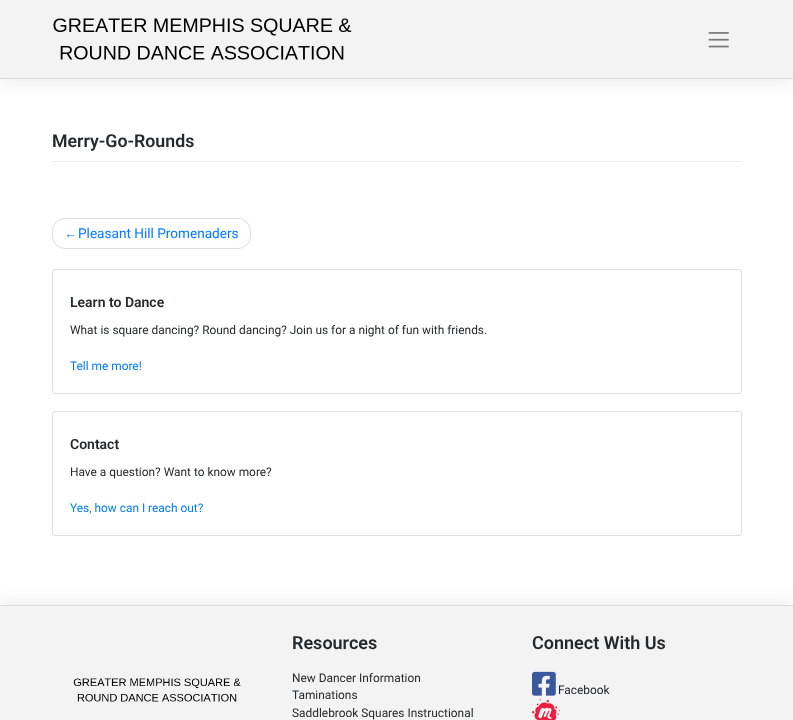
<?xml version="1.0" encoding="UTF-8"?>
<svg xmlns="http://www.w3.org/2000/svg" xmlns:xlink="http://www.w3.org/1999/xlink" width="793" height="720">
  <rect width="100%" height="100%" fill="#ffffff" />
  <rect y="7" width="793" height="79" fill="#000000" fill-opacity="0.05" filter="blur(7px)" />
  <rect width="793" height="78" fill="#f3f3f3" />
  <rect y="78" width="793" height="1" fill="#dbdbdb" />
  <image x="53" y="18" width="299" height="42" xlink:href="image1.png" />
  <image x="708" y="32" width="21" height="16" xlink:href="image2.png" />
  <rect x="52" y="161" width="690" height="1" fill="#eaecef" />
  <rect x="52.5" y="218.5" width="198" height="30" rx="12.5" fill="none" stroke="#dddddd" />
  <rect x="52.5" y="269.5" width="689" height="124" rx="2.5" fill="none" stroke="#dfdfdf" />
  <rect x="52.5" y="411.5" width="689" height="124" rx="2.5" fill="none" stroke="#dfdfdf" />
  <rect y="598" width="793" height="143" fill="#000000" fill-opacity="0.05" filter="blur(7px)" />
  <rect y="606" width="793" height="114" fill="#f3f3f3" />
  <rect y="605" width="793" height="1" fill="#dbdbdb" />
  <image x="73" y="678" width="168" height="24" xlink:href="image3.png" />
  <image x="532" y="671" width="24" height="25" xlink:href="image4.png" />
  <image x="532" y="699" width="28" height="21" xlink:href="image5.png" />
  <text x="52" y="147" style="font-family: Roboto; font-size: 17.75px; font-weight: 600; fill: #24292e">Merry-Go-Rounds</text>
  <text x="64" y="238" style="font-family: Liberation Sans; font-size: 13.6px; fill: #007bff">←</text>
  <text x="78" y="238" style="font-family: Roboto; font-size: 13.6px; fill: #007bff">Pleasant Hill Promenaders</text>
  <text x="70" y="307" style="font-family: Roboto; font-size: 14px; font-weight: 600; fill: #24292e">Learn to Dance</text>
  <text x="70" y="334" style="font-family: Roboto; font-size: 11.9px; fill: #24292e">What is square dancing? Round dancing? Join us for a night of fun with friends.</text>
  <text x="70" y="370" style="font-family: Roboto; font-size: 11.9px; fill: #007bff">Tell me more!</text>
  <text x="70" y="449" style="font-family: Roboto; font-size: 14px; font-weight: 600; fill: #24292e">Contact</text>
  <text x="70" y="476" style="font-family: Roboto; font-size: 11.9px; fill: #24292e">Have a question? Want to know more?</text>
  <text x="70" y="512" style="font-family: Roboto; font-size: 11.9px; fill: #007bff">Yes, how can I reach out?</text>
  <text x="292" y="649" style="font-family: Roboto; font-size: 18px; font-weight: 600; fill: #24292e">Resources</text>
  <text x="292" y="682" style="font-family: Roboto; font-size: 11.9px; fill: #24292e">New Dancer Information</text>
  <text x="292" y="699" style="font-family: Roboto; font-size: 11.9px; fill: #24292e">Taminations</text>
  <text x="292" y="717" style="font-family: Roboto; font-size: 11.9px; fill: #24292e">Saddlebrook Squares Instructional</text>
  <text x="532" y="649" style="font-family: Roboto; font-size: 18px; font-weight: 600; fill: #24292e">Connect With Us</text>
  <text x="558" y="694" style="font-family: Roboto; font-size: 11.9px; fill: #24292e">Facebook</text>
</svg>
